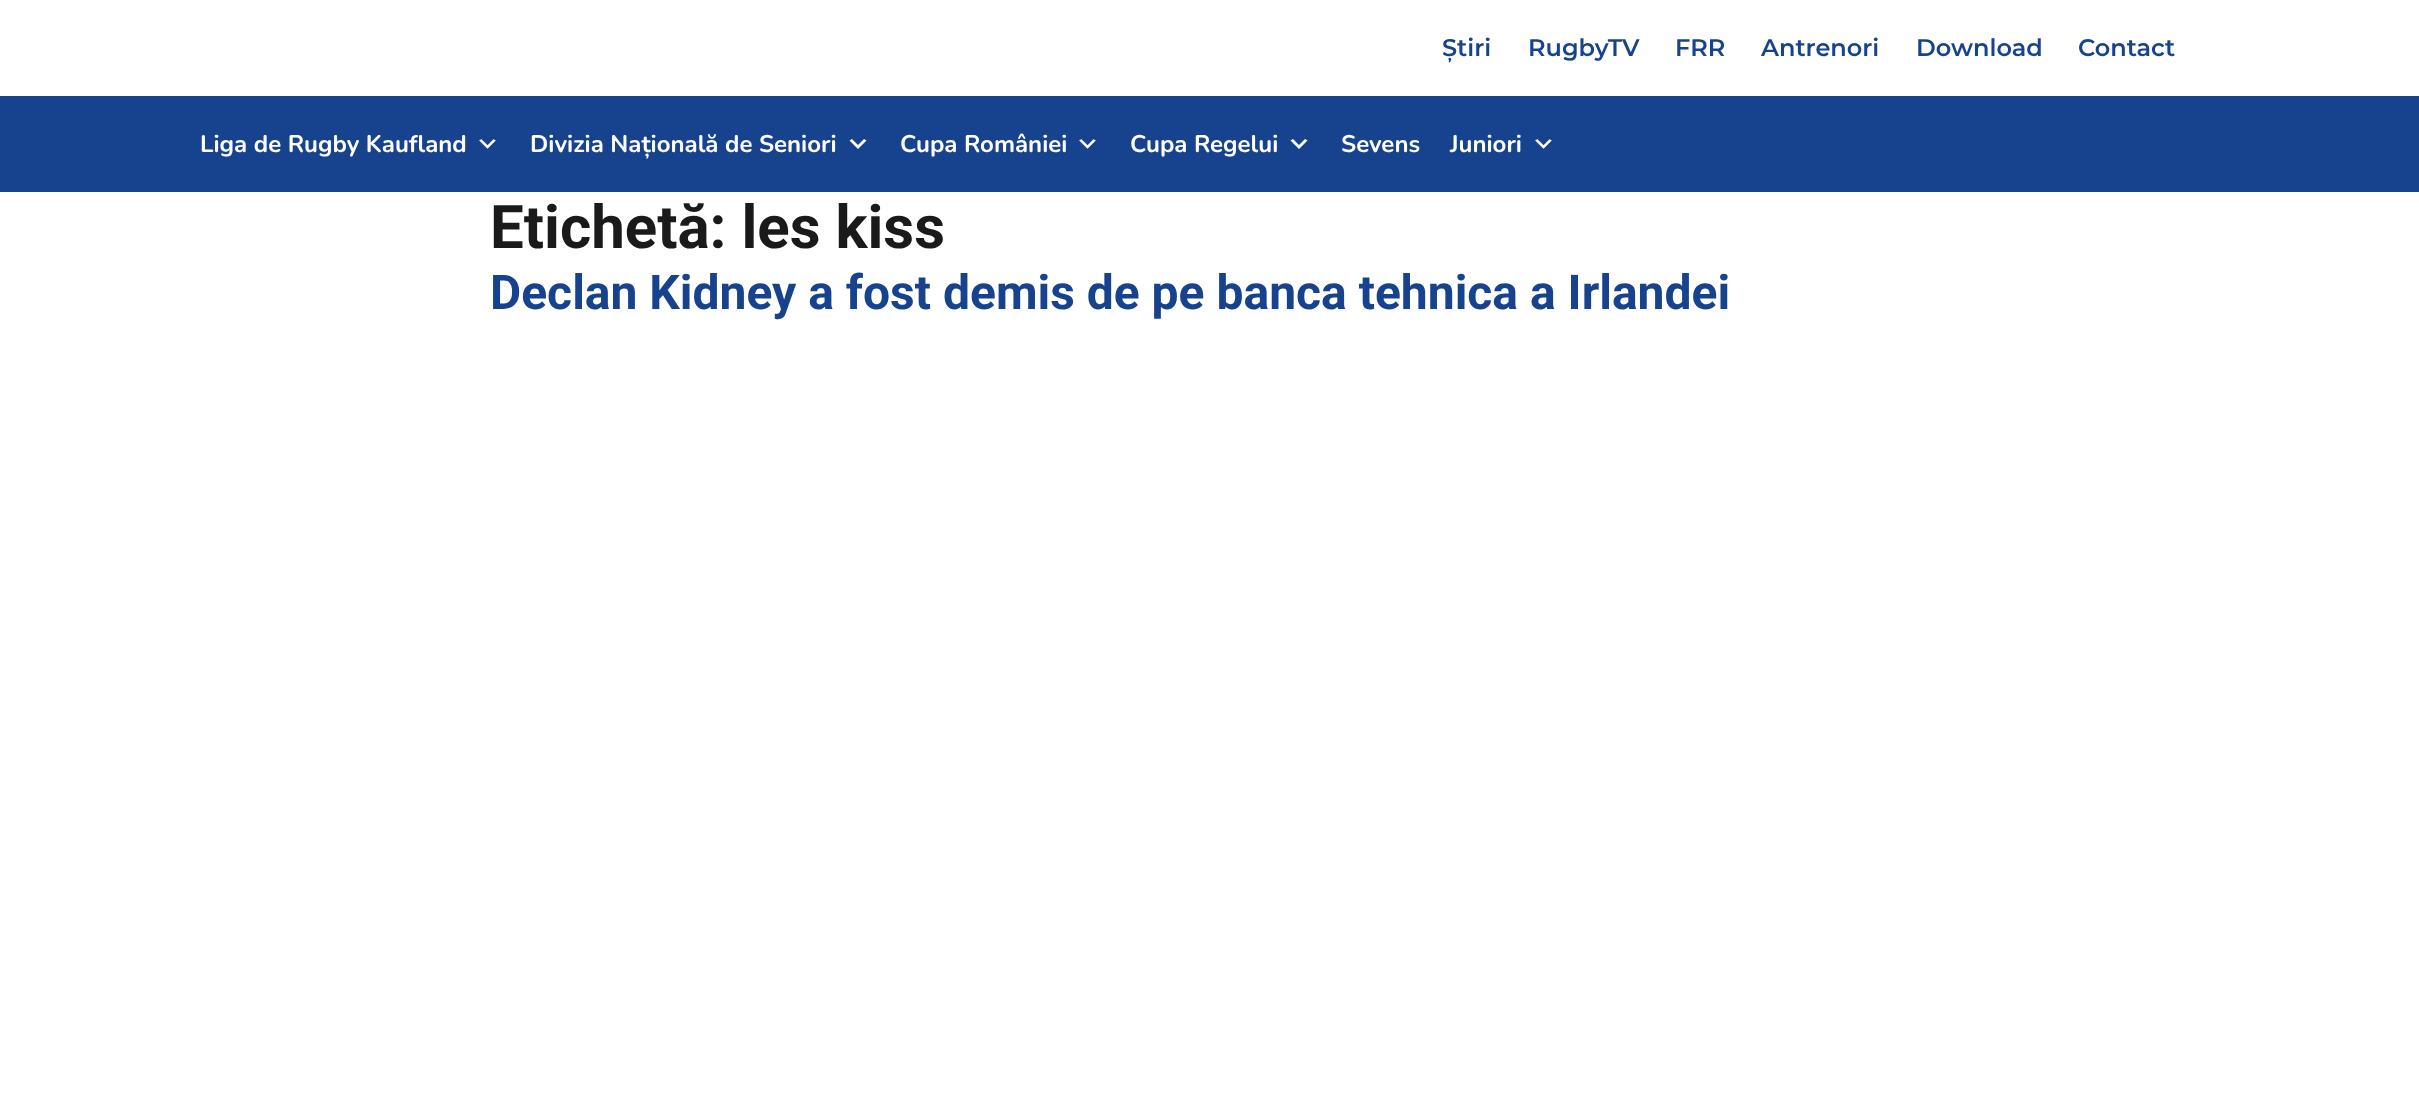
<?xml version="1.0" encoding="UTF-8"?>
<svg xmlns="http://www.w3.org/2000/svg" xmlns:xlink="http://www.w3.org/1999/xlink" width="2419" height="1093">
  <rect width="100%" height="100%" fill="#ffffff" />
  <rect y="96" width="2419" height="96" fill="#17438e" />
  <image x="479" y="139" width="17" height="10" xlink:href="image1.png" />
  <path d="M 852 139 l 6 6 l 6 -6 l 2.5 1.5 l -8.5 8.5 l -8.5 -8.5 z" fill="#ffffff" />
  <image x="1079" y="139" width="17" height="10" xlink:href="image1.png" />
  <path d="M 1293 139 l 6 6 l 6 -6 l 2.5 1.5 l -8.5 8.5 l -8.5 -8.5 z" fill="#ffffff" />
  <image x="1535" y="139" width="17" height="10" xlink:href="image1.png" />
  <text x="1442" y="56" style="font-family: Montserrat; font-size: 24px; font-weight: 600; fill: #17438e">Știri</text>
  <text x="1528" y="56" style="font-family: Montserrat; font-size: 24px; font-weight: 600; fill: #17438e">RugbyTV</text>
  <text x="1675" y="56" style="font-family: Montserrat; font-size: 24px; font-weight: 600; fill: #17438e">FRR</text>
  <text x="1761" y="56" style="font-family: Montserrat; font-size: 24px; font-weight: 600; fill: #17438e">Antrenori</text>
  <text x="1916" y="56" style="font-family: Montserrat; font-size: 24px; font-weight: 600; fill: #17438e">Download</text>
  <text x="2078" y="56" style="font-family: Montserrat; font-size: 24px; font-weight: 600; fill: #17438e">Contact</text>
  <text x="200" y="152" style="font-family: Nunito; font-size: 24px; font-weight: bold; fill: #ffffff">Liga de Rugby Kaufland</text>
  <text x="530" y="152" style="font-family: Nunito; font-size: 24px; font-weight: bold; fill: #ffffff">Divizia Națională de Seniori</text>
  <text x="900" y="152" style="font-family: Nunito; font-size: 24px; font-weight: bold; fill: #ffffff">Cupa României</text>
  <text x="1130" y="152" style="font-family: Nunito; font-size: 24px; font-weight: bold; fill: #ffffff">Cupa Regelui</text>
  <text x="1341" y="152" style="font-family: Nunito; font-size: 24px; font-weight: bold; fill: #ffffff">Sevens</text>
  <text x="1450" y="152" style="font-family: Nunito; font-size: 24px; font-weight: bold; fill: #ffffff">Juniori</text>
  <text x="490" y="248" style="font-family: Roboto; font-size: 60px; font-weight: bold; fill: #1a1a1a">Etichetă: les kiss</text>
  <text x="490" y="309" style="font-family: Roboto; font-size: 48px; font-weight: bold; fill: #17438e">Declan Kidney a fost demis de pe banca tehnica a Irlandei</text>
</svg>
